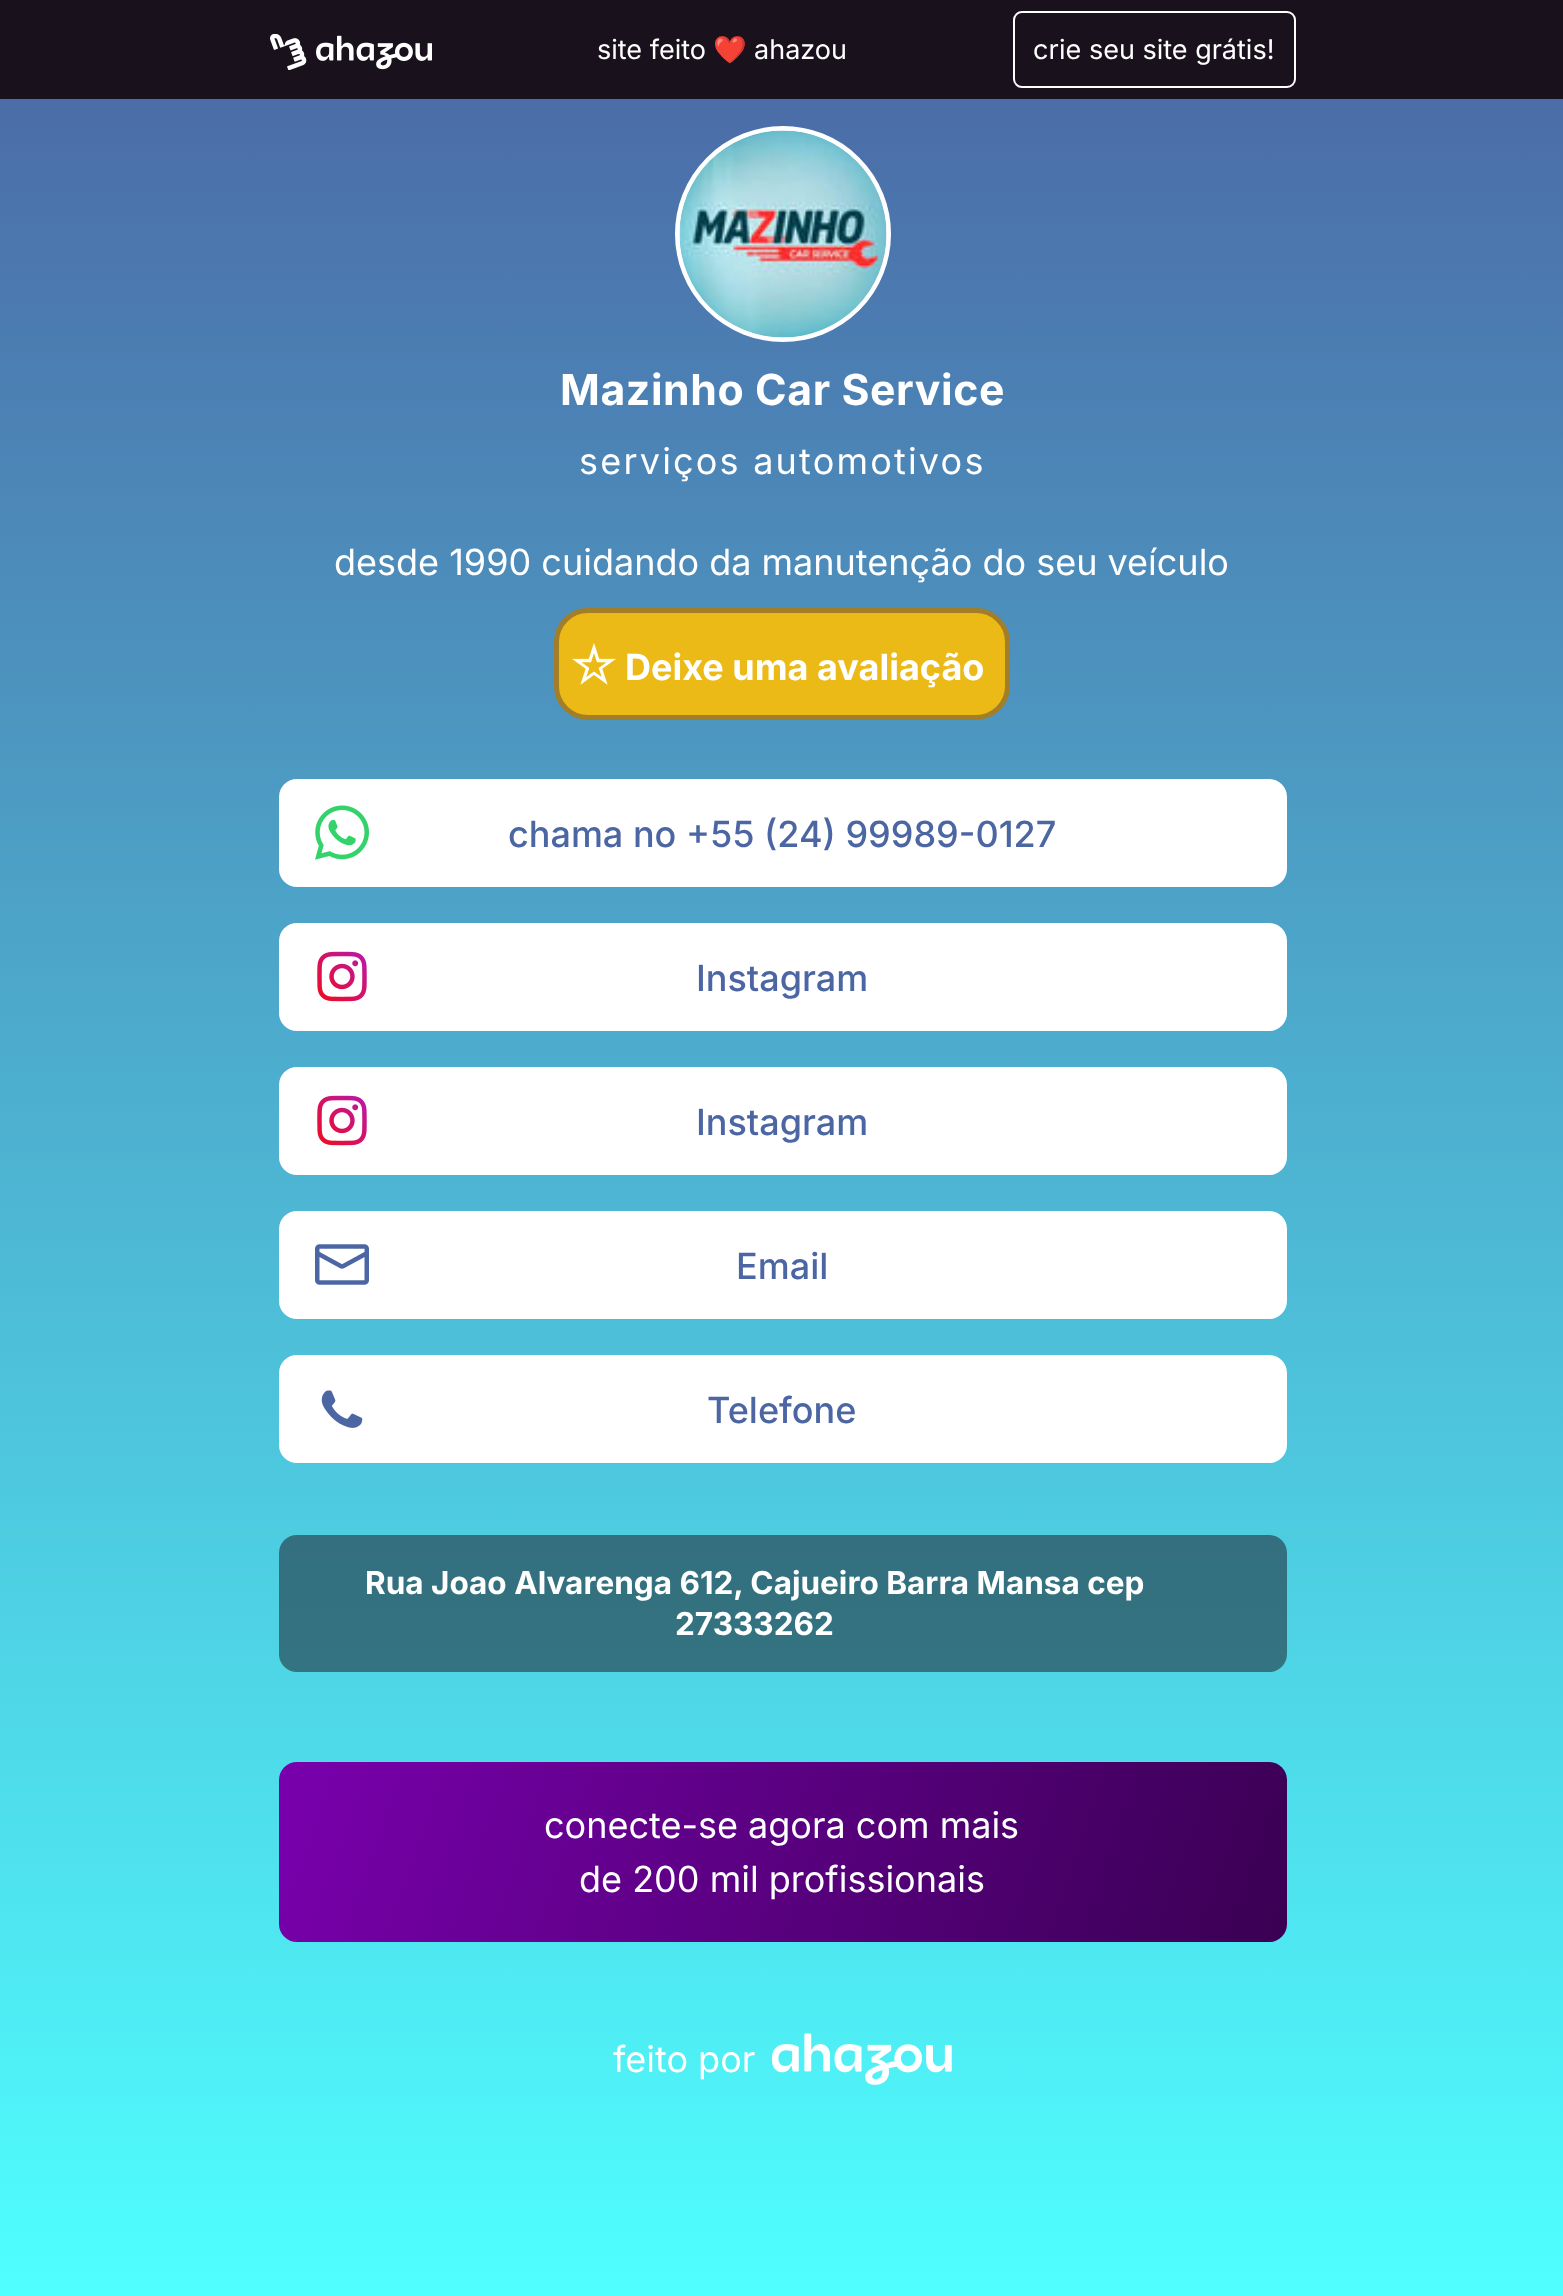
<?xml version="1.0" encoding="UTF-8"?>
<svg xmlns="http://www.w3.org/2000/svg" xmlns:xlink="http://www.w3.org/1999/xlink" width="1563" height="2296">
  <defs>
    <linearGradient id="g1" gradientUnits="userSpaceOnUse" x1="782" y1="0" x2="782" y2="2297"><stop offset="0" stop-color="#4b66a4" /><stop offset="1" stop-color="#4fffff" /></linearGradient>
    <linearGradient id="g2" gradientUnits="userSpaceOnUse" x1="306" y1="1685" x2="1260" y2="2018"><stop offset="0" stop-color="#7900ad" /><stop offset="1" stop-color="#3a0053" /></linearGradient>
  </defs>
  <rect width="100%" height="100%" fill="#ffffff" />
  <rect y="99" width="1563" height="2197" fill="url(#g1)" />
  <rect width="1563" height="99" fill="#19121c" />
  <image x="270" y="34" width="162" height="36" xlink:href="image1.png" />
  <rect x="1014" y="12" width="281" height="75" rx="8" fill="none" stroke="#ffffff" stroke-width="2" />
  <circle cx="783" cy="234" r="105.5" fill="none" stroke="#ffffff" stroke-width="5" />
  <image x="679" y="130" width="208" height="208" xlink:href="image2.png" />
  <rect x="556.5" y="610.5" width="451" height="107" rx="31.5" fill="#ebba17" stroke="#a17e27" stroke-width="5" />
  <image x="572" y="643" width="44" height="42" xlink:href="image3.png" />
  <rect x="279" y="779" width="1008" height="108" rx="18" fill="#ffffff" />
  <image x="315" y="805" width="54" height="55" xlink:href="image4.png" />
  <rect x="279" y="923" width="1008" height="108" rx="18" fill="#ffffff" />
  <image x="317" y="951" width="50" height="51" xlink:href="image5.png" />
  <rect x="279" y="1067" width="1008" height="108" rx="18" fill="#ffffff" />
  <image x="317" y="1095" width="50" height="51" xlink:href="image5.png" />
  <rect x="279" y="1211" width="1008" height="108" rx="18" fill="#ffffff" />
  <image x="315" y="1244" width="54" height="41" xlink:href="image6.png" />
  <rect x="279" y="1355" width="1008" height="108" rx="18" fill="#ffffff" />
  <image x="321" y="1390" width="42" height="38" xlink:href="image7.png" />
  <rect x="279" y="1535" width="1008" height="137" rx="18" fill="#19121c" fill-opacity="0.5" />
  <rect x="279" y="1762" width="1008" height="180" rx="18" fill="url(#g2)" />
  <image x="772" y="2033" width="180" height="52" xlink:href="image8.png" />
  <text x="597" y="59" style="font-family: Inter; font-size: 27px; fill: #ffffff">site feito</text>
  <text x="713" y="59" style="font-family: Noto Color Emoji; font-size: 27px; fill: #ffffff">❤️</text>
  <text x="754" y="59" style="font-family: Inter; font-size: 27px; fill: #ffffff">ahazou</text>
  <text x="1033" y="59" style="font-family: Inter; font-size: 27px; fill: #ffffff">crie seu site grátis!</text>
  <text x="560" y="405" style="font-family: Inter; font-size: 42.75px; font-weight: bold; letter-spacing: 0.6px; fill: #ffffff">Mazinho Car Service</text>
  <text x="579" y="474" style="font-family: Inter; font-size: 36px; letter-spacing: 2.2px; fill: #ffffff">serviços automotivos</text>
  <text x="334" y="575" style="font-family: Inter; font-size: 36px; fill: #ffffff">desde 1990 cuidando da manutenção do seu veículo</text>
  <text x="625" y="680" style="font-family: Inter; font-size: 36px; font-weight: bold; fill: #ffffff">Deixe uma avaliação</text>
  <text x="508" y="847" style="font-family: Inter; font-size: 36px; font-weight: 500; fill: #4b66a3">chama no +55 (24) 99989-0127</text>
  <text x="696" y="991" style="font-family: Inter; font-size: 36px; font-weight: 500; fill: #4b66a3">Instagram</text>
  <text x="696" y="1135" style="font-family: Inter; font-size: 36px; font-weight: 500; fill: #4b66a3">Instagram</text>
  <text x="736" y="1279" style="font-family: Inter; font-size: 36px; font-weight: 500; fill: #4b66a3">Email</text>
  <text x="707" y="1423" style="font-family: Inter; font-size: 36px; font-weight: 500; fill: #4b66a3">Telefone</text>
  <text x="365" y="1594" style="font-family: Inter; font-size: 31.5px; font-weight: bold; fill: #ffffff">Rua Joao Alvarenga 612, Cajueiro Barra Mansa cep</text>
  <text x="675" y="1635" style="font-family: Inter; font-size: 31.5px; font-weight: bold; fill: #ffffff">27333262</text>
  <text x="544" y="1838" style="font-family: Inter; font-size: 36px; fill: #ffffff">conecte-se agora com mais</text>
  <text x="579" y="1892" style="font-family: Inter; font-size: 36px; fill: #ffffff">de 200 mil profissionais</text>
  <text x="613" y="2072" style="font-family: Inter; font-size: 36px; fill: #ffffff">feito por</text>
</svg>
